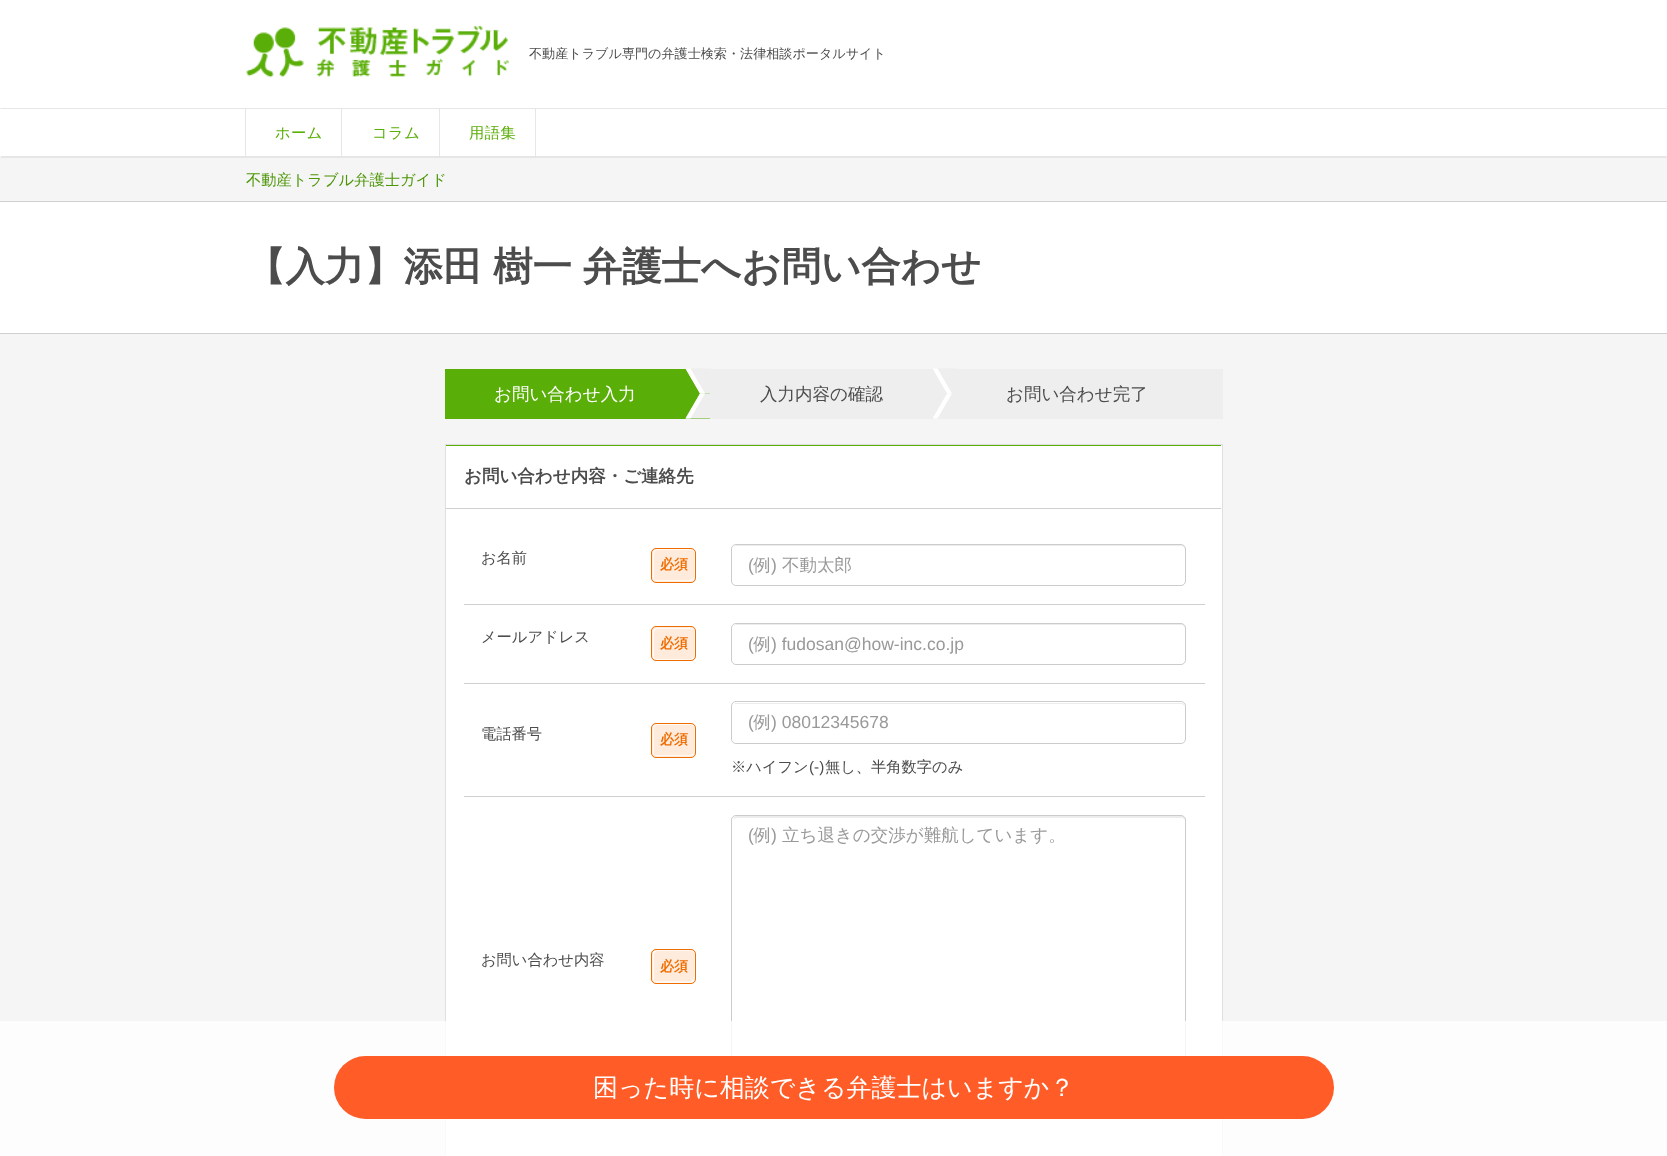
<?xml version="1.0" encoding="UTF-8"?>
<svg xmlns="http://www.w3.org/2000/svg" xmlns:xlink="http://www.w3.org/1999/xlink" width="1667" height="1156">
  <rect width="100%" height="100%" fill="#ffffff" />
  <image x="246" y="25" width="263" height="53" xlink:href="image1.png" />
  <path d="M 0 108 h 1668 l -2 1 h -1665 z" fill="#e6e6e6" />
  <path d="M 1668 158 h -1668 l 1 -2 h 1665 z" fill="#e6e6e6" />
  <rect x="245" y="109" width="1" height="47" fill="#e6e6e6" />
  <rect x="341" y="109" width="1" height="47" fill="#e6e6e6" />
  <rect x="439" y="109" width="1" height="47" fill="#e6e6e6" />
  <rect x="535" y="109" width="1" height="47" fill="#e6e6e6" />
  <rect y="158" width="1667" height="43" fill="#f5f5f5" />
  <rect y="201" width="1667" height="1" fill="#cfcfcf" />
  <rect y="333" width="1667" height="1" fill="#cfcfcf" />
  <rect y="334" width="1667" height="822" fill="#f5f5f5" />
  <rect x="445" y="369" width="265" height="50" fill="#5aae08" />
  <rect x="710" y="369" width="513" height="50" fill="#eeeeee" />
  <path d="M 700 393.5 h 25 l -14.5 25 h -25 z" fill="#eeeeee" />
  <path d="M 700 393.5 h 5 l -14.5 25 h -5 z" fill="#ffffff" />
  <path d="M 685.5 368.5 h 25 l 14.5 25 h -25 z" fill="#eeeeee" />
  <path d="M 685.5 368.5 h 5 l 14.5 25 h -5 z" fill="#ffffff" />
  <path d="M 947 393.5 h 5 l -14.5 25 h -5 z" fill="#ffffff" />
  <path d="M 932.5 368.5 h 25 l 14.5 25 h -25 z" fill="#eeeeee" />
  <path d="M 932.5 368.5 h 5 l 14.5 25 h -5 z" fill="#ffffff" />
  <rect x="445.5" y="444.5" width="777" height="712" fill="#ffffff" stroke="#dfdfdf" />
  <rect x="446" y="445" width="775" height="1" fill="#5aae08" />
  <rect x="446" y="508" width="775" height="1" fill="#cfcfcf" />
  <rect x="651" y="548" width="45" height="35" rx="5" fill="#ffebdb" />
  <path d="M 654 580 c 2 2 7 1 9 1 h 11 c 22 0 21 4 21 -16 c 0 -3 1 -13 -1 -15 c 1 3 0 11 0 14 c 0 18 2 16 -16 16 z" fill="#fff9f4" />
  <path d="M 658 550 h 34 l 2 1 c -1 -3 -6 -2 -9 -2 h -11 c -22 0 -21 -4 -21 16 c 0 3 -1 13 1 15 v -2 v -24 c 0 -2 2 -4 4 -4 z" fill="#fff9f4" />
  <rect x="651.5" y="548.5" width="44" height="34" rx="4.5" fill="none" stroke="#ef6c00" />
  <rect x="464" y="604" width="741" height="1" fill="#cfcfcf" />
  <path d="M 736 546 h 445 c 2 0 4 2 4 4 v -1 c 0 -2 -2 -4 -4 -4 h -444 c -1 0 -3 1 -3 2 z" fill="#ececec" />
  <rect x="731.5" y="544.5" width="454" height="41" rx="4.5" fill="none" stroke="#cccccc" />
  <rect x="651" y="626" width="45" height="35" rx="5" fill="#ffebdb" />
  <path d="M 654 659 c 2 2 7 1 9 1 h 11 c 22 0 21 4 21 -16 c 0 -3 1 -12 -1 -15 v 18 c 0 15 0 12 -16 12 z" fill="#fff9f4" />
  <path d="M 658 629 h 34 l 2 1 c -1 -3 -6 -2 -9 -2 h -11 c -25 0 -21 -4 -21 20 c 0 3 -2 9 2 11 l -1 -2 v -24 c 0 -2 2 -4 4 -4 z" fill="#fff9f4" />
  <rect x="651.5" y="626.5" width="44" height="34" rx="4.5" fill="none" stroke="#ef6c00" />
  <rect x="464" y="683" width="741" height="1" fill="#cfcfcf" />
  <path d="M 736 625 h 445 c 2 0 4 2 4 4 v -1 c 0 -2 -2 -4 -4 -4 h -444 c -1 0 -3 1 -3 2 z" fill="#ececec" />
  <rect x="731.5" y="623.5" width="454" height="41" rx="4.5" fill="none" stroke="#cccccc" />
  <rect x="651" y="723" width="45" height="35" rx="5" fill="#ffebdb" />
  <path d="M 654 755 c 2 2 7 1 9 1 h 11 c 22 0 21 4 21 -16 c 0 -3 1 -12 -1 -15 v 18 c 0 15 0 12 -16 12 z" fill="#fff9f4" />
  <path d="M 658 725 h 34 l 2 1 c -1 -3 -6 -2 -9 -2 h -11 c -22 0 -21 -4 -21 16 c 0 3 -1 12 1 15 v -22 c 0 -3 0 -8 4 -8 z" fill="#fff9f4" />
  <rect x="651.5" y="723.5" width="44" height="34" rx="4.5" fill="none" stroke="#ef6c00" />
  <rect x="464" y="796" width="741" height="1" fill="#cfcfcf" />
  <path d="M 736 704 h 445 c 2 0 4 1 4 4 c 0 -3 -1 -5 -4 -5 h -445 l -2 1 z" fill="#ececec" />
  <rect x="731.5" y="701.5" width="454" height="42" rx="4.5" fill="none" stroke="#cccccc" />
  <path d="M 736 818 h 445 c 2 0 4 1 4 3 v -1 c 0 -2 -2 -4 -4 -4 h -444 c -2 0 -3 1 -4 3 z" fill="#ececec" />
  <rect x="731.5" y="815.5" width="454" height="267" rx="4.5" fill="none" stroke="#cccccc" />
  <rect x="651" y="949" width="45" height="35" rx="5" fill="#ffebdb" />
  <path d="M 653 981 c 1 1 2 2 4 2 h 34 c 2 0 4 -2 4 -4 v -25 c 0 -1 -1 -3 -2 -3 c 2 2 1 11 1 14 c 0 21 1 16 -22 16 h -11 c -1 0 -6 1 -8 0 z" fill="#fff9f4" />
  <path d="M 658 951 h 34 l 2 1 c -1 -3 -6 -2 -9 -2 h -11 c -25 0 -21 -4 -21 21 c 0 3 -1 9 2 11 l -1 -2 v -25 c 0 -2 2 -4 4 -4 z" fill="#fff9f4" />
  <rect x="651.5" y="949.5" width="44" height="34" rx="4.5" fill="none" stroke="#ef6c00" />
  <rect y="1021" width="1667" height="135" fill="#ffffff" fill-opacity="0.8" />
  <rect x="334" y="1056" width="1000" height="63" rx="31.5" fill="#ff5c27" />
  <text x="529" y="58" style="font-family: WenQuanYi Zen Hei; font-size: 13.1px; font-weight: 500; fill: #4c4c4c">不動産トラブル専門の弁護士検索・法律相談ポータルサイト</text>
  <text x="275" y="138" style="font-family: WenQuanYi Zen Hei; font-size: 15.25px; font-weight: 500; letter-spacing: 0.5px; fill: #5aae08">ホーム</text>
  <text x="372" y="138" style="font-family: WenQuanYi Zen Hei; font-size: 15.25px; font-weight: 500; letter-spacing: 0.5px; fill: #5aae08">コラム</text>
  <text x="469" y="138" style="font-family: WenQuanYi Zen Hei; font-size: 15.25px; font-weight: 500; letter-spacing: 0.5px; fill: #5aae08">用語集</text>
  <text x="246" y="185" style="font-family: WenQuanYi Zen Hei; font-size: 15.25px; font-weight: 500; fill: #4d9607">不動産トラブル弁護士ガイド</text>
  <text x="246" y="280" word-spacing="-1" style="font-family: WenQuanYi Zen Hei; font-size: 39.4px; font-weight: bold; fill: #4c4c4c">【入力】添田 樹一 弁護士へお問い合わせ</text>
  <text x="494" y="400" style="font-family: WenQuanYi Zen Hei; font-size: 17.5px; font-weight: 500; fill: #ffffff">お問い合わせ入力</text>
  <text x="760" y="400" style="font-family: WenQuanYi Zen Hei; font-size: 17.5px; font-weight: 500; fill: #4c4c4c">入力内容の確認</text>
  <text x="1006" y="400" style="font-family: WenQuanYi Zen Hei; font-size: 17.5px; font-weight: 500; fill: #4c4c4c">お問い合わせ完了</text>
  <text x="464" y="482" style="font-family: WenQuanYi Zen Hei; font-size: 17.5px; font-weight: bold; fill: #4c4c4c">お問い合わせ内容・ご連絡先</text>
  <text x="481" y="563" style="font-family: WenQuanYi Zen Hei; font-size: 15.25px; font-weight: 500; fill: #4c4c4c">お名前</text>
  <text x="660" y="569" style="font-family: WenQuanYi Zen Hei; font-size: 14px; font-weight: bold; fill: #ef6c00">必須</text>
  <text x="748" y="571" style="font-family: Liberation Sans; font-size: 17.5px; fill: #999999">(</text>
  <text x="753" y="571" style="font-family: WenQuanYi Zen Hei; font-size: 17.5px; font-weight: 500; fill: #999999">例</text>
  <text x="771" y="571" style="font-family: Liberation Sans; font-size: 17.5px; fill: #999999">)</text>
  <text x="782" y="571" style="font-family: WenQuanYi Zen Hei; font-size: 17.5px; font-weight: 500; fill: #999999">不動太郎</text>
  <text x="481" y="642" style="font-family: WenQuanYi Zen Hei; font-size: 15.25px; font-weight: 500; fill: #4c4c4c">メールアドレス</text>
  <text x="660" y="648" style="font-family: WenQuanYi Zen Hei; font-size: 14px; font-weight: bold; fill: #ef6c00">必須</text>
  <text x="748" y="650" style="font-family: Liberation Sans; font-size: 17.5px; fill: #999999">(</text>
  <text x="753" y="650" style="font-family: WenQuanYi Zen Hei; font-size: 17.5px; font-weight: 500; fill: #999999">例</text>
  <text x="771" y="650" style="font-family: Liberation Sans; font-size: 17.5px; fill: #999999">) fudosan@how-inc.co.jp</text>
  <text x="481" y="739" style="font-family: WenQuanYi Zen Hei; font-size: 15.25px; font-weight: 500; fill: #4c4c4c">電話番号</text>
  <text x="660" y="744" style="font-family: WenQuanYi Zen Hei; font-size: 14px; font-weight: bold; fill: #ef6c00">必須</text>
  <text x="748" y="728" style="font-family: Liberation Sans; font-size: 17.5px; fill: #999999">(</text>
  <text x="753" y="728" style="font-family: WenQuanYi Zen Hei; font-size: 17.5px; font-weight: 500; fill: #999999">例</text>
  <text x="771" y="728" style="font-family: Liberation Sans; font-size: 17.5px; fill: #999999">) 08012345678</text>
  <text x="731" y="772" style="font-family: WenQuanYi Zen Hei; font-size: 15.25px; font-weight: 500; fill: #4c4c4c">※ハイフン</text>
  <text x="809" y="772" style="font-family: Liberation Sans; font-size: 15.25px; fill: #4c4c4c">(-)</text>
  <text x="825" y="772" style="font-family: WenQuanYi Zen Hei; font-size: 15.25px; font-weight: 500; fill: #4c4c4c">無し、半角数字のみ</text>
  <text x="748" y="841" style="font-family: Liberation Sans; font-size: 17.5px; fill: #999999">(</text>
  <text x="753" y="841" style="font-family: WenQuanYi Zen Hei; font-size: 17.5px; font-weight: 500; fill: #999999">例</text>
  <text x="771" y="841" style="font-family: Liberation Sans; font-size: 17.5px; fill: #999999">)</text>
  <text x="782" y="841" style="font-family: WenQuanYi Zen Hei; font-size: 17.5px; font-weight: 500; fill: #999999">立ち退きの交渉が難航しています。</text>
  <text x="481" y="965" style="font-family: WenQuanYi Zen Hei; font-size: 15.25px; font-weight: 500; fill: #4c4c4c">お問い合わせ内容</text>
  <text x="660" y="971" style="font-family: WenQuanYi Zen Hei; font-size: 14px; font-weight: bold; fill: #ef6c00">必須</text>
  <text x="593" y="1096" style="font-family: WenQuanYi Zen Hei; font-size: 25px; font-weight: 500; fill: #ffffff">困った時に相談できる弁護士はいますか？</text>
</svg>
